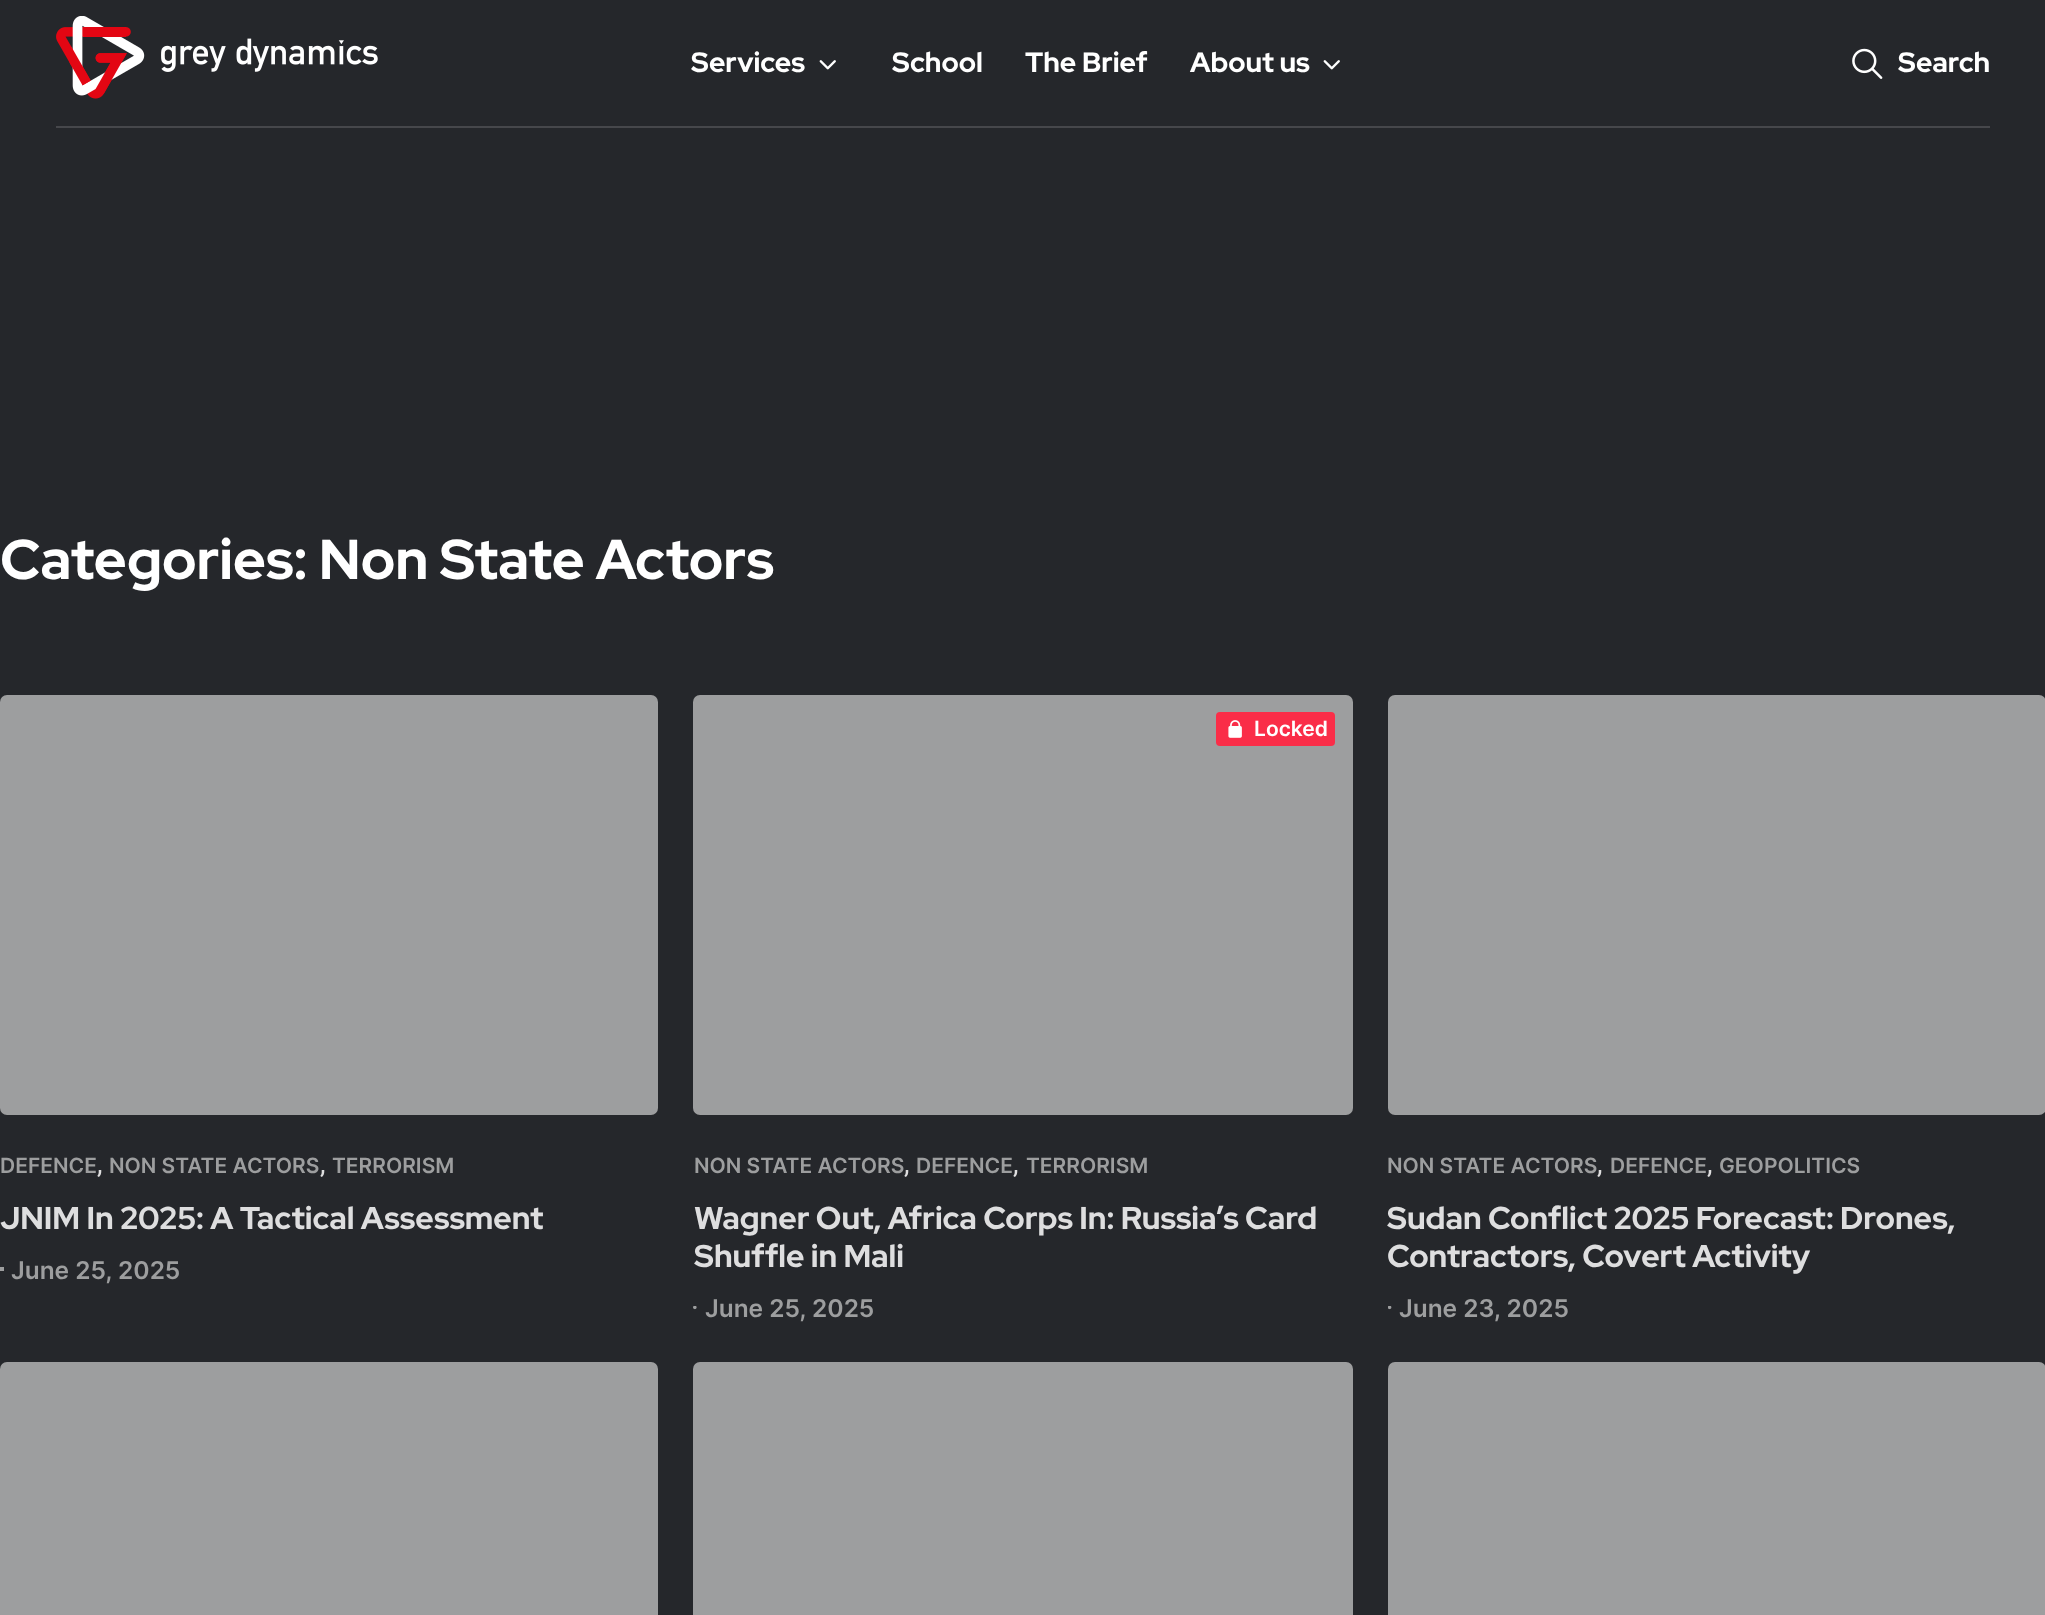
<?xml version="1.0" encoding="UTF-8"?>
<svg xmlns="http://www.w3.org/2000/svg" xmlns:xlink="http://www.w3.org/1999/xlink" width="2045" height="1615">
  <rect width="100%" height="100%" fill="#25272b" />
  <rect x="56" y="126" width="1934" height="2" fill="#46474b" />
  <image x="56" y="16" width="322" height="83" xlink:href="image1.png" />
  <image x="819" y="60" width="17" height="10" xlink:href="image2.png" />
  <image x="1323" y="60" width="17" height="10" xlink:href="image2.png" />
  <image x="1852" y="48" width="31" height="31" xlink:href="image3.png" />
  <rect y="695" width="658" height="420" rx="7" fill="#9d9e9f" />
  <rect y="1267" width="4" height="4" fill="#9d9e9f" />
  <rect x="693" y="695" width="660" height="420" rx="7" fill="#9d9e9f" />
  <rect x="1216" y="712" width="119" height="34" rx="4" fill="#fa2d48" />
  <image x="1228" y="720" width="14" height="18" xlink:href="image4.png" />
  <image x="693" y="1306" width="4" height="4" xlink:href="image5.png" />
  <rect x="1388" y="695" width="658" height="420" rx="7" fill="#9d9e9f" />
  <image x="1388" y="1306" width="4" height="4" xlink:href="image6.png" />
  <rect y="1362" width="658" height="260" rx="7" fill="#9d9e9f" />
  <rect x="693" y="1362" width="660" height="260" rx="7" fill="#9d9e9f" />
  <rect x="1388" y="1362" width="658" height="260" rx="7" fill="#9d9e9f" />
  <text x="691" y="72" style="font-family: Red Hat Display; font-size: 28px; font-weight: bold; fill: #ffffff">Services</text>
  <text x="892" y="72" style="font-family: Red Hat Display; font-size: 28px; font-weight: bold; fill: #ffffff">School</text>
  <text x="1025" y="72" style="font-family: Red Hat Display; font-size: 28px; font-weight: bold; fill: #ffffff">The Brief</text>
  <text x="1190" y="72" style="font-family: Red Hat Display; font-size: 28px; font-weight: bold; fill: #ffffff">About us</text>
  <text x="1898" y="72" style="font-family: Red Hat Display; font-size: 28px; font-weight: bold; fill: #ffffff">Search</text>
  <text x="0" y="579" style="font-family: Red Hat Display; font-size: 56px; font-weight: bold; fill: #ffffff">Categories: Non State Actors</text>
  <text x="0" y="1173" style="font-family: Inter; font-size: 21px; font-weight: 600; fill: #9d9e9f">DEFENCE</text>
  <text x="97" y="1173" style="font-family: Roboto; font-size: 28px; fill: #dededf">,</text>
  <text x="109" y="1173" style="font-family: Inter; font-size: 21px; font-weight: 600; fill: #9d9e9f">NON STATE ACTORS</text>
  <text x="320" y="1173" style="font-family: Roboto; font-size: 28px; fill: #dededf">,</text>
  <text x="332" y="1173" style="font-family: Inter; font-size: 21px; font-weight: 600; fill: #9d9e9f">TERRORISM</text>
  <text x="0" y="1229" style="font-family: Red Hat Display; font-size: 31.5px; font-weight: bold; fill: #dededf">JNIM In 2025: A Tactical Assessment</text>
  <text x="11" y="1279" style="font-family: Inter; font-size: 24.5px; font-weight: 600; fill: #9d9e9f">June 25, 2025</text>
  <text x="1254" y="736" style="font-family: Inter; font-size: 21px; font-weight: 600; fill: #ffffff">Locked</text>
  <text x="694" y="1173" style="font-family: Inter; font-size: 21px; font-weight: 600; fill: #9d9e9f">NON STATE ACTORS</text>
  <text x="904" y="1173" style="font-family: Roboto; font-size: 28px; fill: #dededf">,</text>
  <text x="916" y="1173" style="font-family: Inter; font-size: 21px; font-weight: 600; fill: #9d9e9f">DEFENCE</text>
  <text x="1013" y="1173" style="font-family: Roboto; font-size: 28px; fill: #dededf">,</text>
  <text x="1026" y="1173" style="font-family: Inter; font-size: 21px; font-weight: 600; fill: #9d9e9f">TERRORISM</text>
  <text x="694" y="1229" style="font-family: Red Hat Display; font-size: 31.5px; font-weight: bold; fill: #dededf">Wagner Out, Africa Corps In: Russia’s Card</text>
  <text x="694" y="1267" style="font-family: Red Hat Display; font-size: 31.5px; font-weight: bold; fill: #dededf">Shuffle in Mali</text>
  <text x="705" y="1317" style="font-family: Inter; font-size: 24.5px; font-weight: 600; fill: #9d9e9f">June 25, 2025</text>
  <text x="1387" y="1173" style="font-family: Inter; font-size: 21px; font-weight: 600; fill: #9d9e9f">NON STATE ACTORS</text>
  <text x="1597" y="1173" style="font-family: Roboto; font-size: 28px; fill: #dededf">,</text>
  <text x="1610" y="1173" style="font-family: Inter; font-size: 21px; font-weight: 600; fill: #9d9e9f">DEFENCE</text>
  <text x="1707" y="1173" style="font-family: Roboto; font-size: 28px; fill: #dededf">,</text>
  <text x="1719" y="1173" style="font-family: Inter; font-size: 21px; font-weight: 600; fill: #9d9e9f">GEOPOLITICS</text>
  <text x="1387" y="1229" style="font-family: Red Hat Display; font-size: 31.5px; font-weight: bold; fill: #dededf">Sudan Conflict 2025 Forecast: Drones,</text>
  <text x="1387" y="1267" style="font-family: Red Hat Display; font-size: 31.5px; font-weight: bold; fill: #dededf">Contractors, Covert Activity</text>
  <text x="1399" y="1317" style="font-family: Inter; font-size: 24.5px; font-weight: 600; fill: #9d9e9f">June 23, 2025</text>
</svg>
